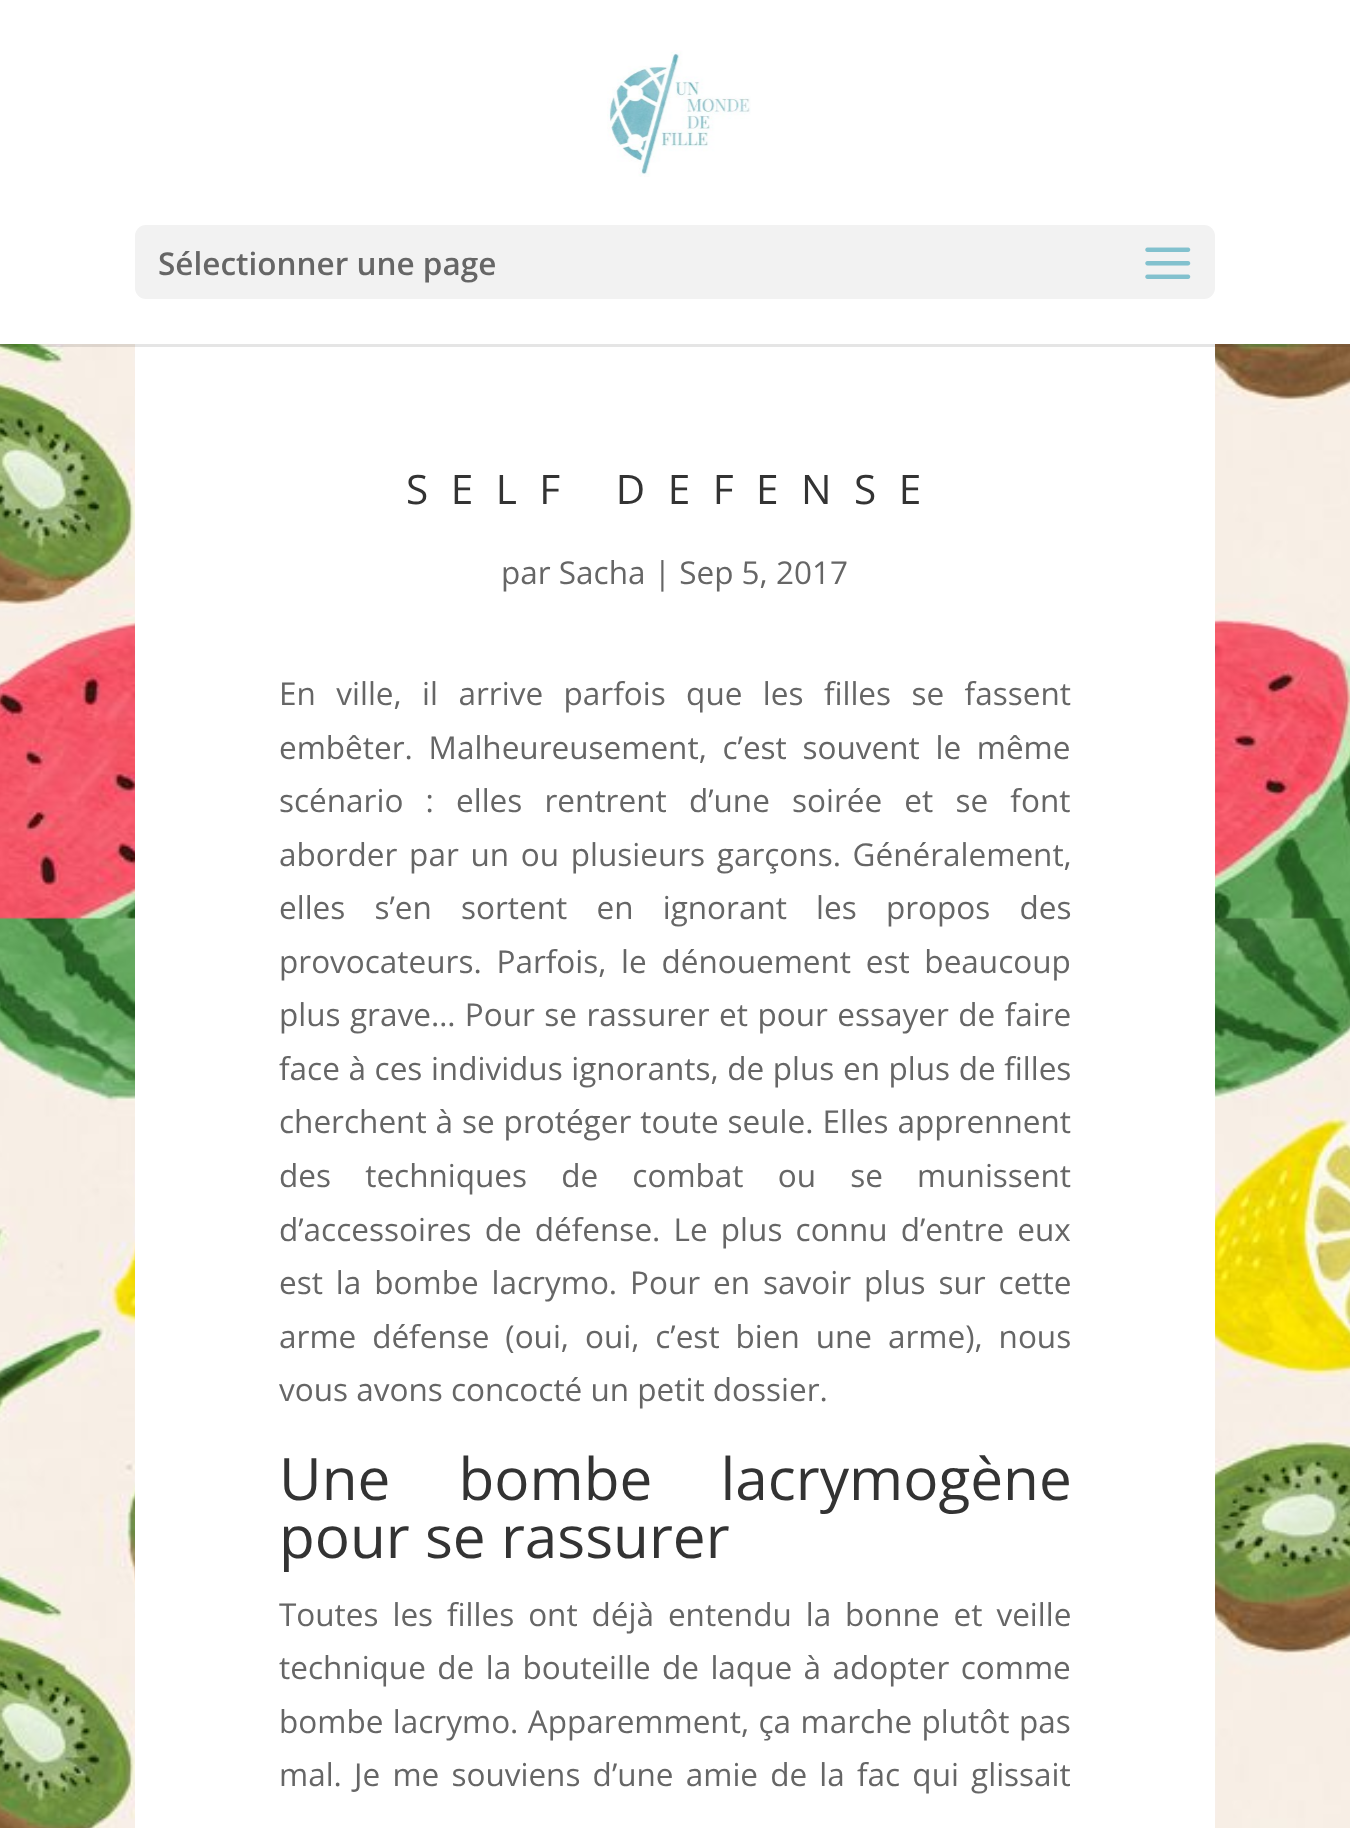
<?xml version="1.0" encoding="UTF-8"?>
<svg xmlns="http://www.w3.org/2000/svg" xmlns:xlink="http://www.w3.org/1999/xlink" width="1350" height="1828">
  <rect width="100%" height="100%" fill="#ffffff" />
  <image x="0" y="344" width="1350" height="1484" xlink:href="image3.png" />
  <rect x="135" y="344" width="1080" height="1484" fill="#ffffff" />
  <rect y="344" width="1350" height="3" fill="#000000" fill-opacity="0.1" />
  <image x="607" y="50" width="144" height="127" xlink:href="image1.png" />
  <rect x="135" y="225" width="1080" height="74" rx="11" fill="#f2f2f2" />
  <image x="1145" y="247" width="46" height="32" xlink:href="image2.png" />
  <text x="158" y="275" style="font-family: Open Sans; font-size: 31.5px; font-weight: 600; fill: #666666">Sélectionner une page</text>
  <text x="406" y="504" style="font-family: Open Sans; font-size: 40.5px; letter-spacing: 22.5px; fill: #333333">SELF DEFENSE</text>
  <text x="501" y="584" style="font-family: Open Sans; font-size: 31.5px; fill: #666666">par Sacha | Sep 5, 2017</text>
  <text x="279" y="705" word-spacing="12.25" style="font-family: Open Sans; font-size: 31.5px; fill: #666666">En ville, il arrive parfois que les filles se fassent</text>
  <text x="279" y="759" word-spacing="7.5" style="font-family: Open Sans; font-size: 31.5px; fill: #666666">embêter. Malheureusement, c’est souvent le même</text>
  <text x="279" y="812" word-spacing="14" style="font-family: Open Sans; font-size: 31.5px; fill: #666666">scénario : elles rentrent d’une soirée et se font</text>
  <text x="279" y="866" word-spacing="3.5" style="font-family: Open Sans; font-size: 31.5px; fill: #666666">aborder par un ou plusieurs garçons. Généralement,</text>
  <text x="279" y="919" word-spacing="21" style="font-family: Open Sans; font-size: 31.5px; fill: #666666">elles s’en sortent en ignorant les propos des</text>
  <text x="279" y="973" word-spacing="6.5" style="font-family: Open Sans; font-size: 31.5px; fill: #666666">provocateurs. Parfois, le dénouement est beaucoup</text>
  <text x="279" y="1026" word-spacing="1.25" style="font-family: Open Sans; font-size: 31.5px; fill: #666666">plus grave… Pour se rassurer et pour essayer de faire</text>
  <text x="279" y="1080" word-spacing="0.4" style="font-family: Open Sans; font-size: 31.5px; fill: #666666">face à ces individus ignorants, de plus en plus de filles</text>
  <text x="279" y="1133" word-spacing="0.75" style="font-family: Open Sans; font-size: 31.5px; fill: #666666">cherchent à se protéger toute seule. Elles apprennent</text>
  <text x="279" y="1187" word-spacing="26" style="font-family: Open Sans; font-size: 31.5px; fill: #666666">des techniques de combat ou se munissent</text>
  <text x="279" y="1241" word-spacing="5" style="font-family: Open Sans; font-size: 31.5px; fill: #666666">d’accessoires de défense. Le plus connu d’entre eux</text>
  <text x="279" y="1294" word-spacing="4.75" style="font-family: Open Sans; font-size: 31.5px; fill: #666666">est la bombe lacrymo. Pour en savoir plus sur cette</text>
  <text x="279" y="1348" word-spacing="7.75" style="font-family: Open Sans; font-size: 31.5px; fill: #666666">arme défense (oui, oui, c’est bien une arme), nous</text>
  <text x="279" y="1401" style="font-family: Open Sans; font-size: 31.5px; fill: #666666">vous avons concocté un petit dossier.</text>
  <text x="279" y="1500" word-spacing="53" style="font-family: Open Sans; font-size: 58.5px; fill: #333333">Une bombe lacrymogène</text>
  <text x="279" y="1558" style="font-family: Open Sans; font-size: 58.5px; fill: #333333">pour se rassurer</text>
  <text x="279" y="1626" word-spacing="5.75" style="font-family: Open Sans; font-size: 31.5px; fill: #666666">Toutes les filles ont déjà entendu la bonne et veille</text>
  <text x="279" y="1679" word-spacing="3.25" style="font-family: Open Sans; font-size: 31.5px; fill: #666666">technique de la bouteille de laque à adopter comme</text>
  <text x="279" y="1733" word-spacing="1.25" style="font-family: Open Sans; font-size: 31.5px; fill: #666666">bombe lacrymo. Apparemment, ça marche plutôt pas</text>
  <text x="279" y="1786" word-spacing="4" style="font-family: Open Sans; font-size: 31.5px; fill: #666666">mal. Je me souviens d’une amie de la fac qui glissait</text>
</svg>
